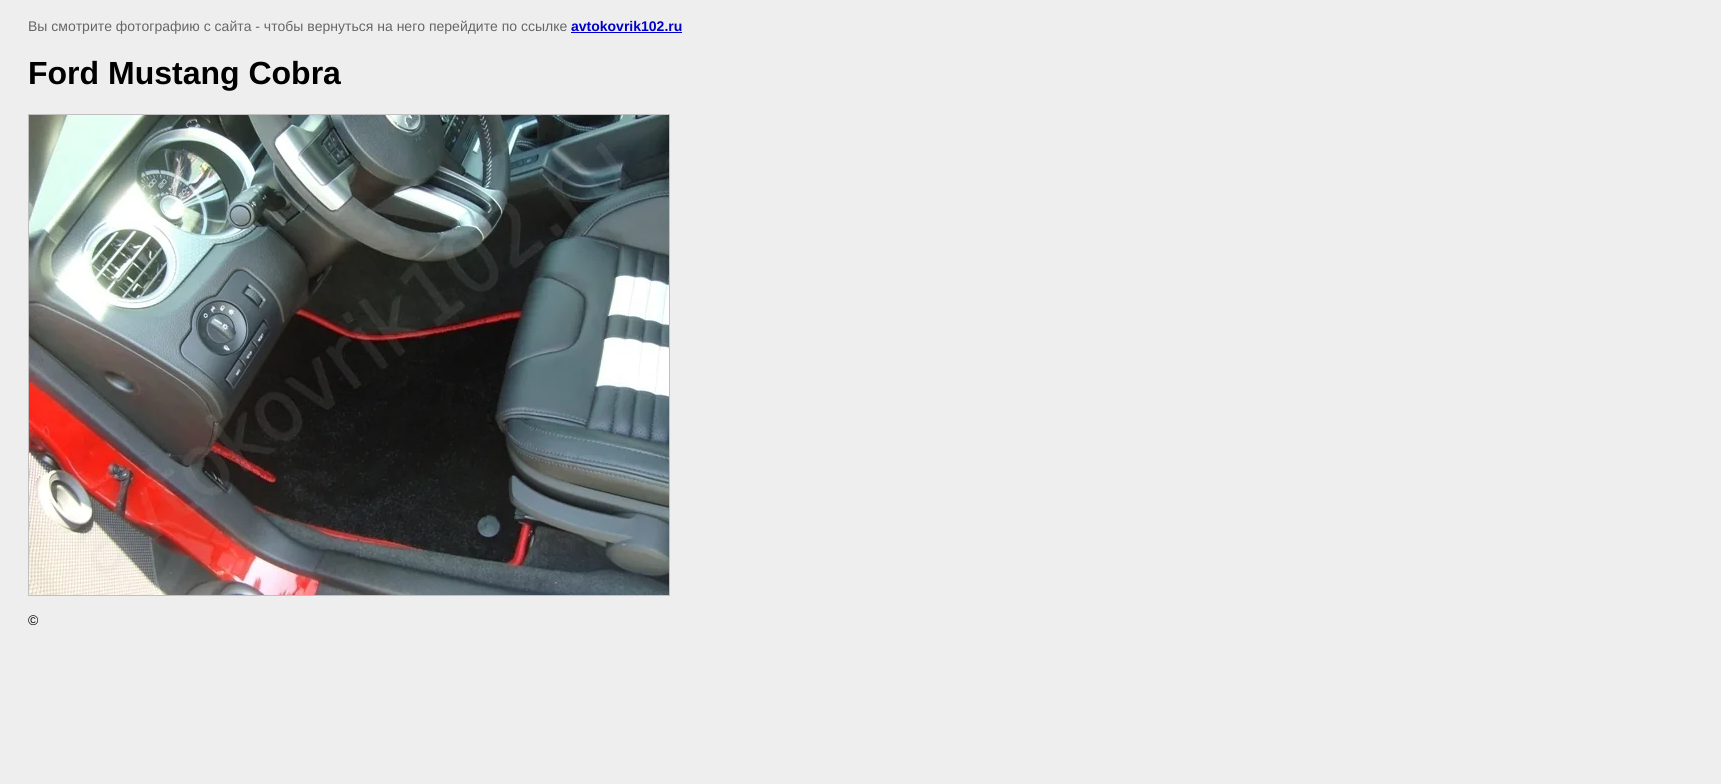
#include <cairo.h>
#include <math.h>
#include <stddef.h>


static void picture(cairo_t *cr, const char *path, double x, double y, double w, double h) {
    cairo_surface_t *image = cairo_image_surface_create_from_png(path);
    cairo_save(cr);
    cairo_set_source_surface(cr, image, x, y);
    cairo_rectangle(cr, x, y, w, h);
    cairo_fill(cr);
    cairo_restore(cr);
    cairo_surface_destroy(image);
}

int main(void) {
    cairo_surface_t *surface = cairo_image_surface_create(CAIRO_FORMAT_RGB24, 1721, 784);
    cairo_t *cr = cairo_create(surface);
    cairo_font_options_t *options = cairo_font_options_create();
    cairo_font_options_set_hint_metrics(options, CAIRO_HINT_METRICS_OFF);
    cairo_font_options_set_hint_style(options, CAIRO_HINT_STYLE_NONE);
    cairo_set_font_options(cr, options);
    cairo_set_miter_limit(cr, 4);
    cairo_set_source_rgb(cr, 0.933, 0.933, 0.933);
    cairo_paint(cr);
    cairo_select_font_face(cr, "Liberation Sans", CAIRO_FONT_SLANT_NORMAL, CAIRO_FONT_WEIGHT_NORMAL);
    cairo_set_font_size(cr, 14);
    cairo_set_source_rgb(cr, 0.4, 0.4, 0.4);
    cairo_move_to(cr, 28, 31);
    cairo_show_text(cr, "Вы смотрите фотографию с сайта - чтобы вернуться на него перейдите по ссылке");
    cairo_select_font_face(cr, "Liberation Sans", CAIRO_FONT_SLANT_NORMAL, CAIRO_FONT_WEIGHT_BOLD);
    cairo_set_source_rgb(cr, 0, 0, 0.8);
    cairo_move_to(cr, 571, 31);
    cairo_show_text(cr, "avtokovrik102.ru");
    cairo_rectangle(cr, 571, 32, 111, 1);
    cairo_fill(cr);
    cairo_set_font_size(cr, 32);
    cairo_set_source_rgb(cr, 0, 0, 0);
    cairo_move_to(cr, 28, 84);
    cairo_show_text(cr, "Ford Mustang Cobra");
    cairo_rectangle(cr, 28.5, 114.5, 641, 481);
    cairo_set_source_rgb(cr, 0.753, 0.753, 0.753);
    cairo_set_line_width(cr, 1);
    cairo_stroke(cr);
    picture(cr, "img1.png", 29, 115, 640, 480);
    cairo_select_font_face(cr, "Liberation Sans", CAIRO_FONT_SLANT_NORMAL, CAIRO_FONT_WEIGHT_NORMAL);
    cairo_set_font_size(cr, 14);
    cairo_set_source_rgb(cr, 0, 0, 0);
    cairo_move_to(cr, 28, 625);
    cairo_show_text(cr, "©");
    cairo_surface_write_to_png(surface, "page.png");
    cairo_font_options_destroy(options);
    cairo_destroy(cr);
    cairo_surface_destroy(surface);
    return 0;
}
